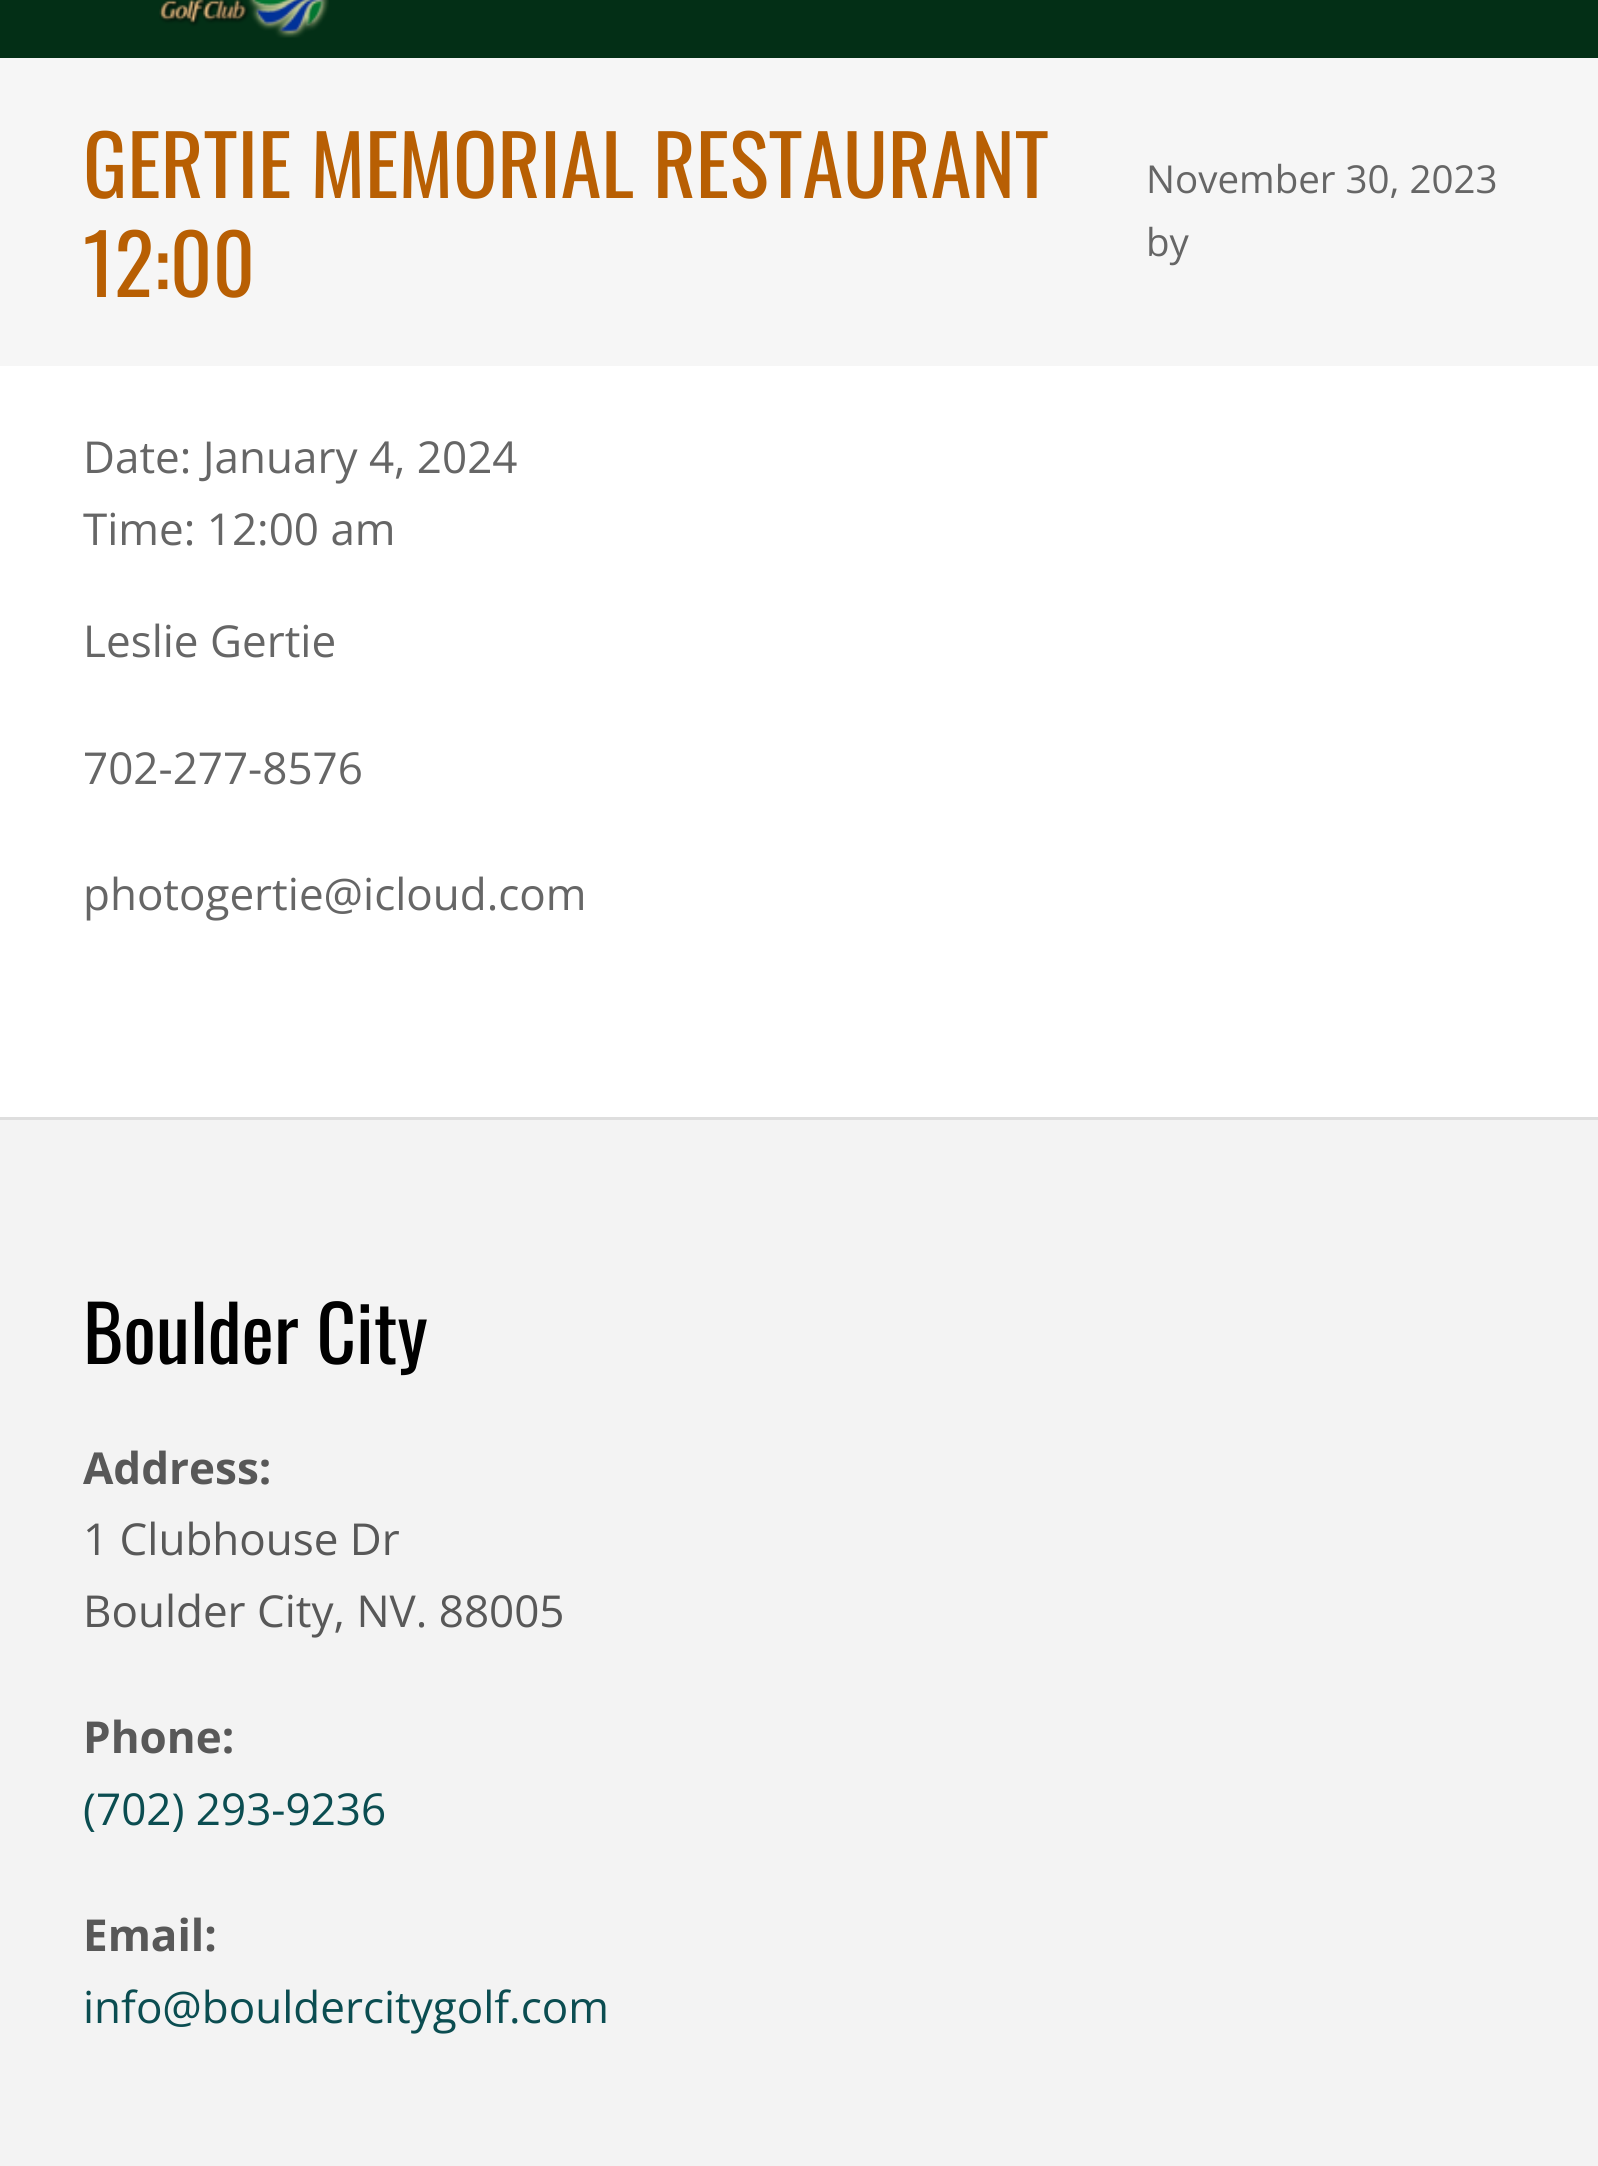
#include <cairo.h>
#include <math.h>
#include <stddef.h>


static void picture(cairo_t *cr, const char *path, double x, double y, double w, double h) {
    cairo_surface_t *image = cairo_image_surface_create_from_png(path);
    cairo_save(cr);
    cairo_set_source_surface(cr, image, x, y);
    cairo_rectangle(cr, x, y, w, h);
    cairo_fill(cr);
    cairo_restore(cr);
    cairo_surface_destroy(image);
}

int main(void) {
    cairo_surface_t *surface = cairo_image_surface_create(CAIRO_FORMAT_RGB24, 1598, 2166);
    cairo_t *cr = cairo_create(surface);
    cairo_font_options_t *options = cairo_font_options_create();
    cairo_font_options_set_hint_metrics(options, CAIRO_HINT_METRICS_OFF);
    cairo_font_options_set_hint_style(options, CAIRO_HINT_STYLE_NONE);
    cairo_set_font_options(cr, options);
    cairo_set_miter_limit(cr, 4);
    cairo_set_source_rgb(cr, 1, 1, 1);
    cairo_paint(cr);
    cairo_set_source_rgb(cr, 0.012, 0.184, 0.086);
    cairo_rectangle(cr, 0, 0, 1598, 58);
    cairo_fill(cr);
    picture(cr, "img1.png", 159, 0, 170, 38);
    cairo_set_source_rgb(cr, 0.961, 0.961, 0.961);
    cairo_rectangle(cr, 0, 58, 1598, 308);
    cairo_fill(cr);
    cairo_select_font_face(cr, "Oswald", CAIRO_FONT_SLANT_NORMAL, CAIRO_FONT_WEIGHT_NORMAL);
    cairo_set_font_size(cr, 82.5);
    cairo_set_source_rgb(cr, 0.722, 0.373, 0.012);
    cairo_move_to(cr, 83, 198);
    cairo_show_text(cr, "GERTIE MEMORIAL RESTAURANT");
    cairo_move_to(cr, 83, 297);
    cairo_show_text(cr, "12:00");
    cairo_select_font_face(cr, "Open Sans", CAIRO_FONT_SLANT_NORMAL, CAIRO_FONT_WEIGHT_NORMAL);
    cairo_set_font_size(cr, 38.5);
    cairo_set_source_rgb(cr, 0.4, 0.4, 0.4);
    cairo_move_to(cr, 1146, 193);
    cairo_show_text(cr, "November 30, 2023");
    cairo_move_to(cr, 1146, 256);
    cairo_show_text(cr, "by");
    cairo_set_font_size(cr, 44);
    cairo_move_to(cr, 83, 473);
    cairo_show_text(cr, "Date: January 4, 2024");
    cairo_move_to(cr, 83, 545);
    cairo_show_text(cr, "Time: 12:00 am");
    cairo_move_to(cr, 83, 657);
    cairo_show_text(cr, "Leslie Gertie");
    cairo_move_to(cr, 83, 784);
    cairo_show_text(cr, "702-277-8576");
    cairo_move_to(cr, 83, 910);
    cairo_show_text(cr, "photogertie@icloud.com");
    cairo_set_source_rgb(cr, 0.953, 0.953, 0.953);
    cairo_rectangle(cr, 0, 1120, 1598, 1046);
    cairo_fill(cr);
    cairo_set_source_rgb(cr, 0.871, 0.871, 0.871);
    cairo_rectangle(cr, 0, 1117, 1598, 3);
    cairo_fill(cr);
    cairo_select_font_face(cr, "Oswald", CAIRO_FONT_SLANT_NORMAL, CAIRO_FONT_WEIGHT_NORMAL);
    cairo_set_font_size(cr, 77);
    cairo_set_source_rgb(cr, 0, 0, 0);
    cairo_move_to(cr, 83, 1364);
    cairo_show_text(cr, "Boulder City");
    cairo_select_font_face(cr, "Open Sans", CAIRO_FONT_SLANT_NORMAL, CAIRO_FONT_WEIGHT_BOLD);
    cairo_set_font_size(cr, 44);
    cairo_set_source_rgb(cr, 0.345, 0.345, 0.345);
    cairo_move_to(cr, 83, 1484);
    cairo_show_text(cr, "Address:");
    cairo_select_font_face(cr, "Open Sans", CAIRO_FONT_SLANT_NORMAL, CAIRO_FONT_WEIGHT_NORMAL);
    cairo_move_to(cr, 83, 1555);
    cairo_show_text(cr, "1 Clubhouse Dr");
    cairo_move_to(cr, 83, 1627);
    cairo_show_text(cr, "Boulder City, NV. 88005");
    cairo_select_font_face(cr, "Open Sans", CAIRO_FONT_SLANT_NORMAL, CAIRO_FONT_WEIGHT_BOLD);
    cairo_move_to(cr, 83, 1753);
    cairo_show_text(cr, "Phone:");
    cairo_select_font_face(cr, "Open Sans", CAIRO_FONT_SLANT_NORMAL, CAIRO_FONT_WEIGHT_NORMAL);
    cairo_set_source_rgb(cr, 0.043, 0.302, 0.318);
    cairo_move_to(cr, 83, 1825);
    cairo_show_text(cr, "(702) 293-9236");
    cairo_select_font_face(cr, "Open Sans", CAIRO_FONT_SLANT_NORMAL, CAIRO_FONT_WEIGHT_BOLD);
    cairo_set_source_rgb(cr, 0.345, 0.345, 0.345);
    cairo_move_to(cr, 83, 1951);
    cairo_show_text(cr, "Email:");
    cairo_select_font_face(cr, "Open Sans", CAIRO_FONT_SLANT_NORMAL, CAIRO_FONT_WEIGHT_NORMAL);
    cairo_set_source_rgb(cr, 0.043, 0.302, 0.318);
    cairo_move_to(cr, 83, 2023);
    cairo_show_text(cr, "info@bouldercitygolf.com");
    cairo_surface_write_to_png(surface, "page.png");
    cairo_font_options_destroy(options);
    cairo_destroy(cr);
    cairo_surface_destroy(surface);
    return 0;
}
